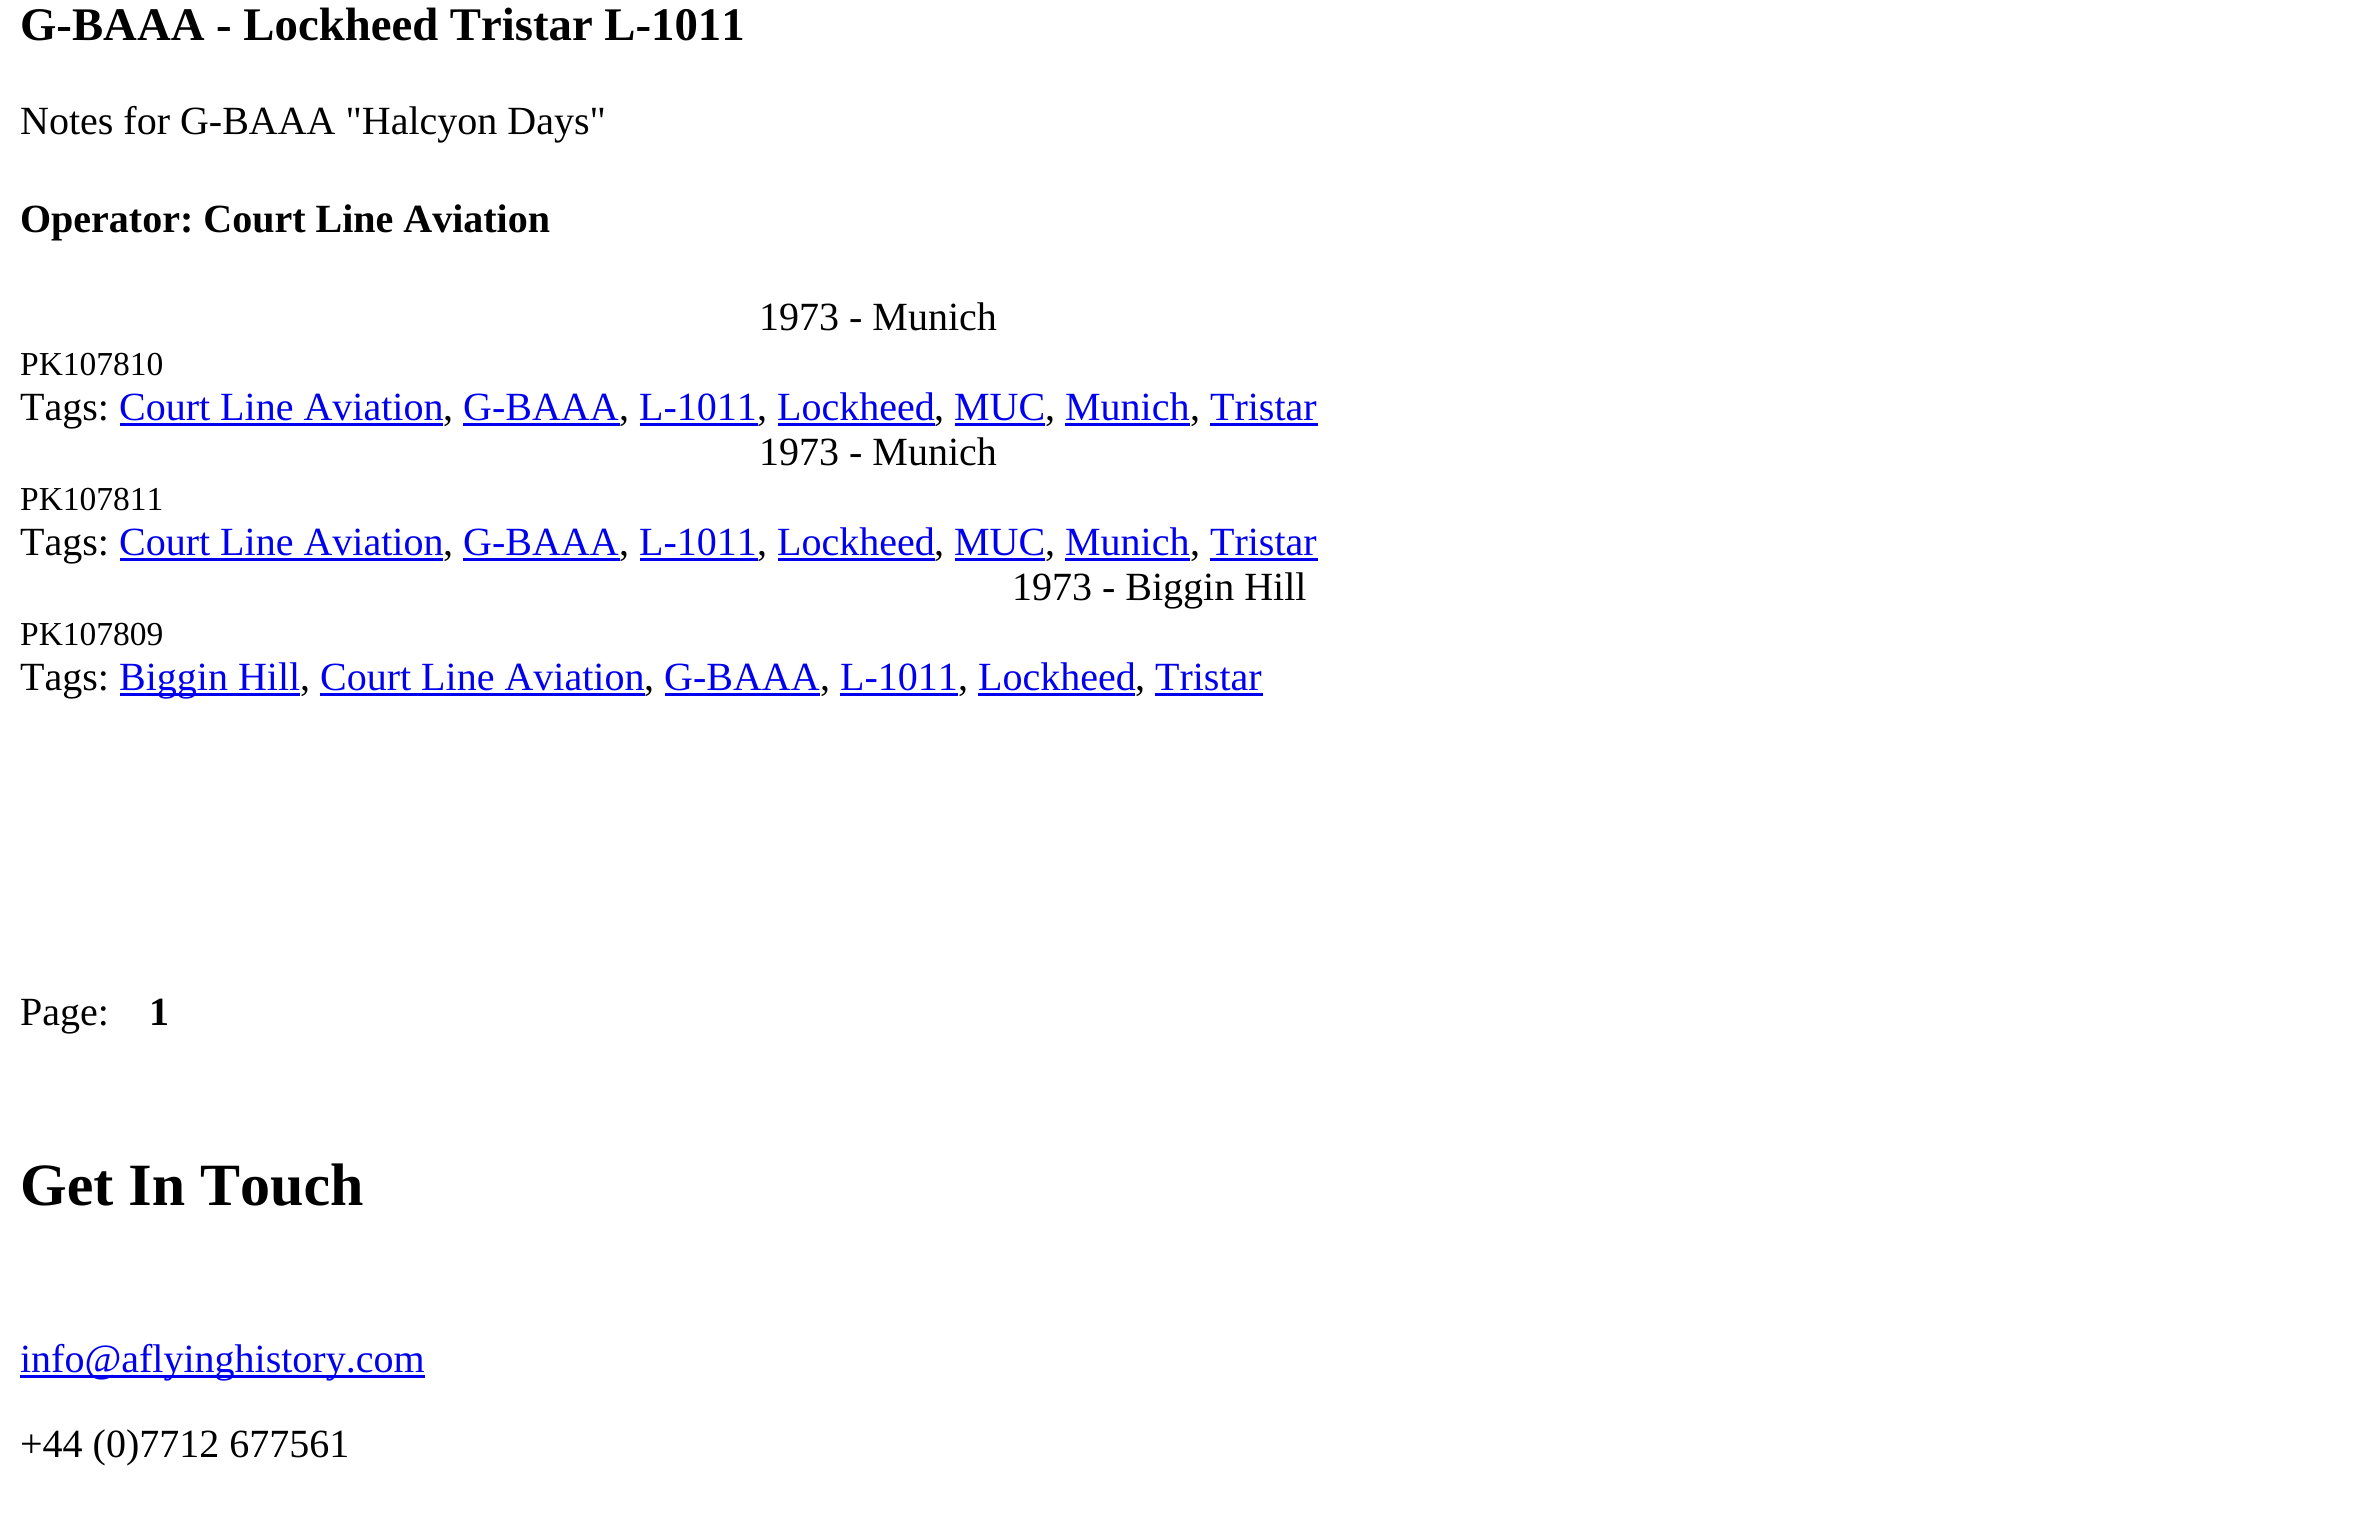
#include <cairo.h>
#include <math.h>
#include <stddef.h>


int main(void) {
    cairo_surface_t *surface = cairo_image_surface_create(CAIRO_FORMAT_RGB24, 2373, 1540);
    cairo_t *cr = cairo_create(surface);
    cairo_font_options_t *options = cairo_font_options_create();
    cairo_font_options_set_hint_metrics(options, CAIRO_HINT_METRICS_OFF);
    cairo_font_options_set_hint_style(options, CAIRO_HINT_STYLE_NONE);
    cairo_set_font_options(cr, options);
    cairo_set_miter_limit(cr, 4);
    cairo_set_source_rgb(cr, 1, 1, 1);
    cairo_paint(cr);
    cairo_select_font_face(cr, "Liberation Serif", CAIRO_FONT_SLANT_NORMAL, CAIRO_FONT_WEIGHT_BOLD);
    cairo_set_font_size(cr, 46.75);
    cairo_set_source_rgb(cr, 0, 0, 0);
    cairo_move_to(cr, 20, 40);
    cairo_show_text(cr, "G-BAAA - Lockheed Tristar L-1011");
    cairo_select_font_face(cr, "Liberation Serif", CAIRO_FONT_SLANT_NORMAL, CAIRO_FONT_WEIGHT_NORMAL);
    cairo_set_font_size(cr, 40);
    cairo_move_to(cr, 20, 134);
    cairo_show_text(cr, "Notes for G-BAAA \"Halcyon Days\"");
    cairo_select_font_face(cr, "Liberation Serif", CAIRO_FONT_SLANT_NORMAL, CAIRO_FONT_WEIGHT_BOLD);
    cairo_move_to(cr, 20, 232);
    cairo_show_text(cr, "Operator: Court Line Aviation");
    cairo_select_font_face(cr, "Liberation Serif", CAIRO_FONT_SLANT_NORMAL, CAIRO_FONT_WEIGHT_NORMAL);
    cairo_move_to(cr, 759, 330);
    cairo_show_text(cr, "1973 - Munich");
    cairo_set_font_size(cr, 33.5);
    cairo_move_to(cr, 20, 375);
    cairo_show_text(cr, "PK107810");
    cairo_set_font_size(cr, 40);
    cairo_move_to(cr, 20, 420);
    cairo_show_text(cr, "Tags:");
    cairo_set_source_rgb(cr, 0, 0, 0.933);
    cairo_move_to(cr, 119, 420);
    cairo_show_text(cr, "Court Line Aviation");
    cairo_rectangle(cr, 120, 423, 323, 3);
    cairo_fill(cr);
    cairo_set_source_rgb(cr, 0, 0, 0);
    cairo_move_to(cr, 443, 420);
    cairo_show_text(cr, ",");
    cairo_set_source_rgb(cr, 0, 0, 0.933);
    cairo_move_to(cr, 463, 420);
    cairo_show_text(cr, "G-BAAA");
    cairo_rectangle(cr, 463, 423, 157, 3);
    cairo_fill(cr);
    cairo_set_source_rgb(cr, 0, 0, 0);
    cairo_move_to(cr, 619, 420);
    cairo_show_text(cr, ",");
    cairo_set_source_rgb(cr, 0, 0, 0.933);
    cairo_move_to(cr, 639, 420);
    cairo_show_text(cr, "L-1011");
    cairo_rectangle(cr, 640, 423, 118, 3);
    cairo_fill(cr);
    cairo_set_source_rgb(cr, 0, 0, 0);
    cairo_move_to(cr, 757, 420);
    cairo_show_text(cr, ",");
    cairo_set_source_rgb(cr, 0, 0, 0.933);
    cairo_move_to(cr, 777, 420);
    cairo_show_text(cr, "Lockheed");
    cairo_rectangle(cr, 778, 423, 157, 3);
    cairo_fill(cr);
    cairo_set_source_rgb(cr, 0, 0, 0);
    cairo_move_to(cr, 934, 420);
    cairo_show_text(cr, ",");
    cairo_set_source_rgb(cr, 0, 0, 0.933);
    cairo_move_to(cr, 954, 420);
    cairo_show_text(cr, "MUC");
    cairo_rectangle(cr, 955, 423, 90, 3);
    cairo_fill(cr);
    cairo_set_source_rgb(cr, 0, 0, 0);
    cairo_move_to(cr, 1045, 420);
    cairo_show_text(cr, ",");
    cairo_set_source_rgb(cr, 0, 0, 0.933);
    cairo_move_to(cr, 1065, 420);
    cairo_show_text(cr, "Munich");
    cairo_rectangle(cr, 1065, 423, 125, 3);
    cairo_fill(cr);
    cairo_set_source_rgb(cr, 0, 0, 0);
    cairo_move_to(cr, 1190, 420);
    cairo_show_text(cr, ",");
    cairo_set_source_rgb(cr, 0, 0, 0.933);
    cairo_move_to(cr, 1210, 420);
    cairo_show_text(cr, "Tristar");
    cairo_rectangle(cr, 1210, 423, 108, 3);
    cairo_fill(cr);
    cairo_set_source_rgb(cr, 0, 0, 0);
    cairo_move_to(cr, 759, 465);
    cairo_show_text(cr, "1973 - Munich");
    cairo_set_font_size(cr, 33.5);
    cairo_move_to(cr, 20, 510);
    cairo_show_text(cr, "PK107811");
    cairo_set_font_size(cr, 40);
    cairo_move_to(cr, 20, 555);
    cairo_show_text(cr, "Tags:");
    cairo_set_source_rgb(cr, 0, 0, 0.933);
    cairo_move_to(cr, 119, 555);
    cairo_show_text(cr, "Court Line Aviation");
    cairo_rectangle(cr, 120, 558, 323, 3);
    cairo_fill(cr);
    cairo_set_source_rgb(cr, 0, 0, 0);
    cairo_move_to(cr, 443, 555);
    cairo_show_text(cr, ",");
    cairo_set_source_rgb(cr, 0, 0, 0.933);
    cairo_move_to(cr, 463, 555);
    cairo_show_text(cr, "G-BAAA");
    cairo_rectangle(cr, 463, 558, 157, 3);
    cairo_fill(cr);
    cairo_set_source_rgb(cr, 0, 0, 0);
    cairo_move_to(cr, 619, 555);
    cairo_show_text(cr, ",");
    cairo_set_source_rgb(cr, 0, 0, 0.933);
    cairo_move_to(cr, 639, 555);
    cairo_show_text(cr, "L-1011");
    cairo_rectangle(cr, 640, 558, 118, 3);
    cairo_fill(cr);
    cairo_set_source_rgb(cr, 0, 0, 0);
    cairo_move_to(cr, 757, 555);
    cairo_show_text(cr, ",");
    cairo_set_source_rgb(cr, 0, 0, 0.933);
    cairo_move_to(cr, 777, 555);
    cairo_show_text(cr, "Lockheed");
    cairo_rectangle(cr, 778, 558, 157, 3);
    cairo_fill(cr);
    cairo_set_source_rgb(cr, 0, 0, 0);
    cairo_move_to(cr, 934, 555);
    cairo_show_text(cr, ",");
    cairo_set_source_rgb(cr, 0, 0, 0.933);
    cairo_move_to(cr, 954, 555);
    cairo_show_text(cr, "MUC");
    cairo_rectangle(cr, 955, 558, 90, 3);
    cairo_fill(cr);
    cairo_set_source_rgb(cr, 0, 0, 0);
    cairo_move_to(cr, 1045, 555);
    cairo_show_text(cr, ",");
    cairo_set_source_rgb(cr, 0, 0, 0.933);
    cairo_move_to(cr, 1065, 555);
    cairo_show_text(cr, "Munich");
    cairo_rectangle(cr, 1065, 558, 125, 3);
    cairo_fill(cr);
    cairo_set_source_rgb(cr, 0, 0, 0);
    cairo_move_to(cr, 1190, 555);
    cairo_show_text(cr, ",");
    cairo_set_source_rgb(cr, 0, 0, 0.933);
    cairo_move_to(cr, 1210, 555);
    cairo_show_text(cr, "Tristar");
    cairo_rectangle(cr, 1210, 558, 108, 3);
    cairo_fill(cr);
    cairo_set_source_rgb(cr, 0, 0, 0);
    cairo_move_to(cr, 1012, 600);
    cairo_show_text(cr, "1973 - Biggin Hill");
    cairo_set_font_size(cr, 33.5);
    cairo_move_to(cr, 20, 645);
    cairo_show_text(cr, "PK107809");
    cairo_set_font_size(cr, 40);
    cairo_move_to(cr, 20, 690);
    cairo_show_text(cr, "Tags:");
    cairo_set_source_rgb(cr, 0, 0, 0.933);
    cairo_rectangle(cr, 120, 693, 180, 3);
    cairo_fill(cr);
    cairo_move_to(cr, 119, 690);
    cairo_show_text(cr, "Biggin Hill");
    cairo_set_source_rgb(cr, 0, 0, 0);
    cairo_move_to(cr, 300, 690);
    cairo_show_text(cr, ",");
    cairo_set_source_rgb(cr, 0, 0, 0.933);
    cairo_move_to(cr, 320, 690);
    cairo_show_text(cr, "Court Line Aviation");
    cairo_rectangle(cr, 320, 693, 325, 3);
    cairo_fill(cr);
    cairo_set_source_rgb(cr, 0, 0, 0);
    cairo_move_to(cr, 644, 690);
    cairo_show_text(cr, ",");
    cairo_set_source_rgb(cr, 0, 0, 0.933);
    cairo_move_to(cr, 664, 690);
    cairo_show_text(cr, "G-BAAA");
    cairo_rectangle(cr, 665, 693, 155, 3);
    cairo_fill(cr);
    cairo_set_source_rgb(cr, 0, 0, 0);
    cairo_move_to(cr, 820, 690);
    cairo_show_text(cr, ",");
    cairo_set_source_rgb(cr, 0, 0, 0.933);
    cairo_move_to(cr, 840, 690);
    cairo_show_text(cr, "L-1011");
    cairo_rectangle(cr, 840, 693, 118, 3);
    cairo_fill(cr);
    cairo_set_source_rgb(cr, 0, 0, 0);
    cairo_move_to(cr, 958, 690);
    cairo_show_text(cr, ",");
    cairo_set_source_rgb(cr, 0, 0, 0.933);
    cairo_move_to(cr, 978, 690);
    cairo_show_text(cr, "Lockheed");
    cairo_rectangle(cr, 978, 693, 157, 3);
    cairo_fill(cr);
    cairo_set_source_rgb(cr, 0, 0, 0);
    cairo_move_to(cr, 1135, 690);
    cairo_show_text(cr, ",");
    cairo_set_source_rgb(cr, 0, 0, 0.933);
    cairo_move_to(cr, 1155, 690);
    cairo_show_text(cr, "Tristar");
    cairo_rectangle(cr, 1155, 693, 108, 3);
    cairo_fill(cr);
    cairo_set_source_rgb(cr, 0, 0, 0);
    cairo_move_to(cr, 20, 1025);
    cairo_show_text(cr, "Page:");
    cairo_select_font_face(cr, "Liberation Serif", CAIRO_FONT_SLANT_NORMAL, CAIRO_FONT_WEIGHT_BOLD);
    cairo_move_to(cr, 149, 1025);
    cairo_show_text(cr, "1");
    cairo_set_font_size(cr, 60);
    cairo_move_to(cr, 20, 1205);
    cairo_show_text(cr, "Get In Touch");
    cairo_set_source_rgb(cr, 0, 0, 0.933);
    cairo_rectangle(cr, 20, 1375, 405, 3);
    cairo_fill(cr);
    cairo_select_font_face(cr, "Liberation Serif", CAIRO_FONT_SLANT_NORMAL, CAIRO_FONT_WEIGHT_NORMAL);
    cairo_set_font_size(cr, 40);
    cairo_move_to(cr, 20, 1372);
    cairo_show_text(cr, "info@aflyinghistory.com");
    cairo_set_source_rgb(cr, 0, 0, 0);
    cairo_move_to(cr, 20, 1457);
    cairo_show_text(cr, "+44 (0)7712 677561");
    cairo_surface_write_to_png(surface, "page.png");
    cairo_font_options_destroy(options);
    cairo_destroy(cr);
    cairo_surface_destroy(surface);
    return 0;
}
